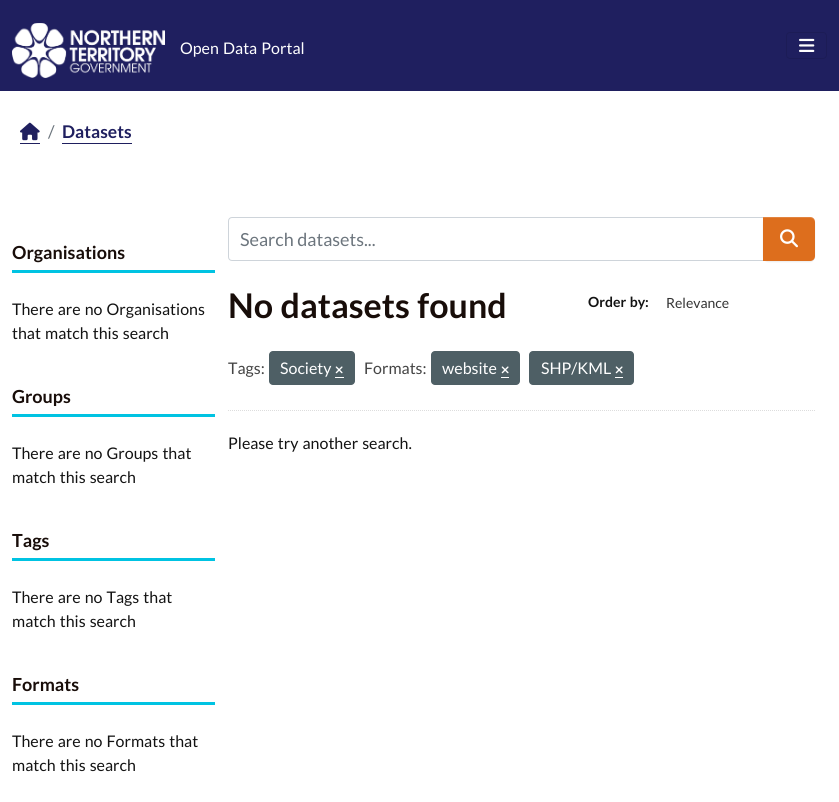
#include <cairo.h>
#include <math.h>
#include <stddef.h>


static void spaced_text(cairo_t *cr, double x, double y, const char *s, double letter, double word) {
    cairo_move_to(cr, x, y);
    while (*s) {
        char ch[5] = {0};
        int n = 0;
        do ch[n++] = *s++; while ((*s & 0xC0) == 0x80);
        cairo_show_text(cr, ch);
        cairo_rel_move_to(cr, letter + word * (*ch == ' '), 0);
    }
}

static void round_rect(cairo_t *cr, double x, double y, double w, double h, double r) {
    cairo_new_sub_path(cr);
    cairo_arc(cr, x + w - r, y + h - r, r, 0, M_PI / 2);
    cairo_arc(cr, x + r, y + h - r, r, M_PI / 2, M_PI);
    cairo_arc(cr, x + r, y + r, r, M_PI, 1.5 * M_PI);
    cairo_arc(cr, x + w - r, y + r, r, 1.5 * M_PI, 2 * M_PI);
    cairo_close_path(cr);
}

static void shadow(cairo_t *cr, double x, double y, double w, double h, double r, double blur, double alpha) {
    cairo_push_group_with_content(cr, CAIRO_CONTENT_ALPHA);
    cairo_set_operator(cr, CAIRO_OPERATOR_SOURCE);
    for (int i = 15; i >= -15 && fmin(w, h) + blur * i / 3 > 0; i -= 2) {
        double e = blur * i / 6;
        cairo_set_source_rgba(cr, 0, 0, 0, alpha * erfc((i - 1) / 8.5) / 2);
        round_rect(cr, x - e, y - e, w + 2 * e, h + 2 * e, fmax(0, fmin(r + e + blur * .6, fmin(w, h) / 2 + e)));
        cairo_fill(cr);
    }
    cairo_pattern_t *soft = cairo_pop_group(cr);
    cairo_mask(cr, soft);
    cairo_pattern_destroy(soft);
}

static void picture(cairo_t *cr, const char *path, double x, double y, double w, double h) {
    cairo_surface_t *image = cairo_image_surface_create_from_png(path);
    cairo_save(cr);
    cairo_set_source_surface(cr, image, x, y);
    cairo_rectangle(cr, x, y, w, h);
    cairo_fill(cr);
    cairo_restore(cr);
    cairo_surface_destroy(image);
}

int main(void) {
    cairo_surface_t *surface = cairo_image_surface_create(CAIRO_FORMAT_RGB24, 839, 802);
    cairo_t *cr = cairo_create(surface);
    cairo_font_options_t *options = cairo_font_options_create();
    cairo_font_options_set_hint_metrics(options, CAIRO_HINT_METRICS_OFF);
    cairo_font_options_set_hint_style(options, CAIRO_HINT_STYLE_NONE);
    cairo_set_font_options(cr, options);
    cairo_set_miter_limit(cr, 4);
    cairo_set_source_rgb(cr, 1, 1, 1);
    cairo_paint(cr);
    cairo_set_source_rgb(cr, 0.122, 0.122, 0.373);
    cairo_rectangle(cr, 0, 0, 839, 91);
    cairo_fill(cr);
    picture(cr, "img1.png", 12, 23, 153, 55);
    cairo_select_font_face(cr, "Lato", CAIRO_FONT_SLANT_NORMAL, CAIRO_FONT_WEIGHT_NORMAL);
    cairo_set_font_size(cr, 16);
    cairo_set_source_rgb(cr, 1, 1, 1);
    spaced_text(cr, 180, 54, "Open Data Portal", 0, 1);
    round_rect(cr, 786.5, 32.5, 40, 26, 3.5);
    cairo_set_source_rgb(cr, 0.11, 0.11, 0.337);
    cairo_set_line_width(cr, 1);
    cairo_stroke(cr);
    picture(cr, "img2.png", 799, 38, 16, 14);
    cairo_set_source_rgb(cr, 0.122, 0.122, 0.373);
    cairo_rectangle(cr, 20, 143, 20, 1);
    cairo_fill(cr);
    picture(cr, "img3.png", 20, 122, 20, 19);
    cairo_set_font_size(cr, 17.5);
    cairo_set_source_rgb(cr, 0.424, 0.459, 0.49);
    cairo_move_to(cr, 48, 138);
    cairo_show_text(cr, "/");
    cairo_select_font_face(cr, "Lato", CAIRO_FONT_SLANT_NORMAL, CAIRO_FONT_WEIGHT_BOLD);
    cairo_set_source_rgb(cr, 0.122, 0.122, 0.373);
    cairo_move_to(cr, 62, 138);
    cairo_show_text(cr, "Datasets");
    cairo_rectangle(cr, 62, 143, 70, 1);
    cairo_fill(cr);
    cairo_set_source_rgb(cr, 0, 0.765, 0.886);
    cairo_rectangle(cr, 12, 270, 203, 3);
    cairo_fill(cr);
    cairo_set_font_size(cr, 18);
    cairo_set_source_rgb(cr, 0.094, 0.051, 0.039);
    cairo_move_to(cr, 12, 259);
    cairo_show_text(cr, "Organisations");
    cairo_select_font_face(cr, "Lato", CAIRO_FONT_SLANT_NORMAL, CAIRO_FONT_WEIGHT_NORMAL);
    cairo_set_font_size(cr, 16);
    cairo_set_source_rgb(cr, 0.078, 0.078, 0.078);
    spaced_text(cr, 12, 315, "There are no Organisations", 0, 1);
    spaced_text(cr, 12, 339, "that match this search", 0, 1);
    cairo_set_source_rgb(cr, 0, 0.765, 0.886);
    cairo_rectangle(cr, 12, 414, 203, 3);
    cairo_fill(cr);
    cairo_select_font_face(cr, "Lato", CAIRO_FONT_SLANT_NORMAL, CAIRO_FONT_WEIGHT_BOLD);
    cairo_set_font_size(cr, 18);
    cairo_set_source_rgb(cr, 0.094, 0.051, 0.039);
    cairo_move_to(cr, 12, 403);
    cairo_show_text(cr, "Groups");
    cairo_select_font_face(cr, "Lato", CAIRO_FONT_SLANT_NORMAL, CAIRO_FONT_WEIGHT_NORMAL);
    cairo_set_font_size(cr, 16);
    cairo_set_source_rgb(cr, 0.078, 0.078, 0.078);
    spaced_text(cr, 12, 459, "There are no Groups that", 0, 1);
    spaced_text(cr, 12, 483, "match this search", 0, 1);
    cairo_set_source_rgb(cr, 0, 0.765, 0.886);
    cairo_rectangle(cr, 12, 558, 203, 3);
    cairo_fill(cr);
    cairo_select_font_face(cr, "Lato", CAIRO_FONT_SLANT_NORMAL, CAIRO_FONT_WEIGHT_BOLD);
    cairo_set_font_size(cr, 18);
    cairo_set_source_rgb(cr, 0.094, 0.051, 0.039);
    cairo_move_to(cr, 12, 547);
    cairo_show_text(cr, "Tags");
    cairo_select_font_face(cr, "Lato", CAIRO_FONT_SLANT_NORMAL, CAIRO_FONT_WEIGHT_NORMAL);
    cairo_set_font_size(cr, 16);
    cairo_set_source_rgb(cr, 0.078, 0.078, 0.078);
    spaced_text(cr, 12, 603, "There are no Tags that", 0, 1);
    spaced_text(cr, 12, 627, "match this search", 0, 1);
    cairo_set_source_rgb(cr, 0, 0.765, 0.886);
    cairo_rectangle(cr, 12, 702, 203, 3);
    cairo_fill(cr);
    cairo_select_font_face(cr, "Lato", CAIRO_FONT_SLANT_NORMAL, CAIRO_FONT_WEIGHT_BOLD);
    cairo_set_font_size(cr, 18);
    cairo_set_source_rgb(cr, 0.094, 0.051, 0.039);
    cairo_move_to(cr, 12, 691);
    cairo_show_text(cr, "Formats");
    cairo_select_font_face(cr, "Lato", CAIRO_FONT_SLANT_NORMAL, CAIRO_FONT_WEIGHT_NORMAL);
    cairo_set_font_size(cr, 16);
    cairo_set_source_rgb(cr, 0.078, 0.078, 0.078);
    spaced_text(cr, 12, 747, "There are no Formats that", 0, 1);
    spaced_text(cr, 12, 771, "match this search", 0, 1);
    cairo_new_path(cr);
    cairo_move_to(cr, 228, 410.5);
    cairo_line_to(cr, 815, 410.5);
    cairo_set_source_rgb(cr, 0.867, 0.867, 0.867);
    cairo_set_dash(cr, (double[]){1, 1}, 2, 0);
    cairo_stroke(cr);
    cairo_new_path(cr);
    cairo_move_to(cr, 232, 217.5);
    cairo_line_to(cr, 763.5, 217.5);
    cairo_line_to(cr, 763.5, 260.5);
    cairo_line_to(cr, 232, 260.5);
    cairo_curve_to(cr, 230, 260.5, 228.5, 259, 228.5, 257);
    cairo_line_to(cr, 228.5, 221);
    cairo_curve_to(cr, 228.5, 219, 230, 217.5, 232, 217.5);
    cairo_close_path(cr);
    cairo_set_source_rgb(cr, 0.808, 0.831, 0.855);
    cairo_set_dash(cr, NULL, 0, 0);
    cairo_stroke(cr);
    cairo_set_font_size(cr, 18);
    cairo_set_source_rgb(cr, 0.424, 0.459, 0.49);
    cairo_move_to(cr, 240, 246);
    cairo_show_text(cr, "Search datasets...");
    cairo_set_source_rgb(cr, 0, 0, 0);
    shadow(cr, 763, 218, 52, 44, 5, 0.5, 0.07);
    cairo_set_source_rgb(cr, 0.867, 0.431, 0.114);
    cairo_new_path(cr);
    cairo_move_to(cr, 763, 217);
    cairo_line_to(cr, 810, 217);
    cairo_curve_to(cr, 813, 217, 815, 219, 815, 222);
    cairo_line_to(cr, 815, 256);
    cairo_curve_to(cr, 815, 259, 813, 261, 810, 261);
    cairo_line_to(cr, 763, 261);
    cairo_close_path(cr);
    cairo_fill(cr);
    cairo_set_source_rgba(cr, 1, 1, 1, 0.15);
    cairo_new_path(cr);
    cairo_move_to(cr, 763, 218);
    cairo_line_to(cr, 810, 218);
    cairo_curve_to(cr, 813, 218, 815, 220, 815, 223);
    cairo_line_to(cr, 815, 222);
    cairo_curve_to(cr, 815, 219, 813, 217, 810, 217);
    cairo_line_to(cr, 763, 217);
    cairo_close_path(cr);
    cairo_fill(cr);
    picture(cr, "img4.png", 780, 229, 18, 19);
    cairo_select_font_face(cr, "Lato", CAIRO_FONT_SLANT_NORMAL, CAIRO_FONT_WEIGHT_BOLD);
    cairo_set_font_size(cr, 34);
    cairo_set_source_rgb(cr, 0.094, 0.051, 0.039);
    spaced_text(cr, 228, 318, "No datasets found", 0, 1);
    cairo_set_font_size(cr, 14);
    cairo_set_source_rgb(cr, 0.078, 0.078, 0.078);
    spaced_text(cr, 588, 307, "Order by", 0, 1);
    cairo_move_to(cr, 645, 307);
    cairo_show_text(cr, ":");
    cairo_select_font_face(cr, "Lato", CAIRO_FONT_SLANT_NORMAL, CAIRO_FONT_WEIGHT_NORMAL);
    cairo_set_source_rgb(cr, 0.2, 0.2, 0.2);
    cairo_move_to(cr, 666, 308);
    cairo_show_text(cr, "Relevance");
    cairo_set_font_size(cr, 16);
    cairo_set_source_rgb(cr, 0.267, 0.267, 0.267);
    cairo_move_to(cr, 228, 374);
    cairo_show_text(cr, "Tags:");
    cairo_set_source_rgb(cr, 0.306, 0.373, 0.396);
    round_rect(cr, 269, 351, 86, 34, 4);
    cairo_fill(cr);
    cairo_set_source_rgb(cr, 1, 1, 1);
    cairo_move_to(cr, 280, 374);
    cairo_show_text(cr, "Society");
    cairo_rectangle(cr, 335, 377, 9, 1);
    cairo_fill(cr);
    picture(cr, "img5.png", 335, 366, 8, 8);
    cairo_set_source_rgb(cr, 0.267, 0.267, 0.267);
    cairo_move_to(cr, 364, 374);
    cairo_show_text(cr, "Formats:");
    cairo_set_source_rgb(cr, 0.306, 0.373, 0.396);
    round_rect(cr, 431, 351, 89, 34, 4);
    cairo_fill(cr);
    cairo_set_source_rgb(cr, 1, 1, 1);
    cairo_move_to(cr, 442, 374);
    cairo_show_text(cr, "website");
    cairo_rectangle(cr, 501, 377, 8, 1);
    cairo_fill(cr);
    picture(cr, "img5.png", 501, 366, 8, 8);
    cairo_set_source_rgb(cr, 0.306, 0.373, 0.396);
    round_rect(cr, 529, 351, 105, 34, 4);
    cairo_fill(cr);
    cairo_set_source_rgb(cr, 1, 1, 1);
    cairo_move_to(cr, 541, 374);
    cairo_show_text(cr, "SHP/KML");
    cairo_rectangle(cr, 615, 377, 8, 1);
    cairo_fill(cr);
    picture(cr, "img5.png", 615, 366, 8, 8);
    cairo_set_source_rgb(cr, 0.078, 0.078, 0.078);
    spaced_text(cr, 228, 449, "Please try another search.", 0, 1);
    cairo_surface_write_to_png(surface, "page.png");
    cairo_font_options_destroy(options);
    cairo_destroy(cr);
    cairo_surface_destroy(surface);
    return 0;
}
